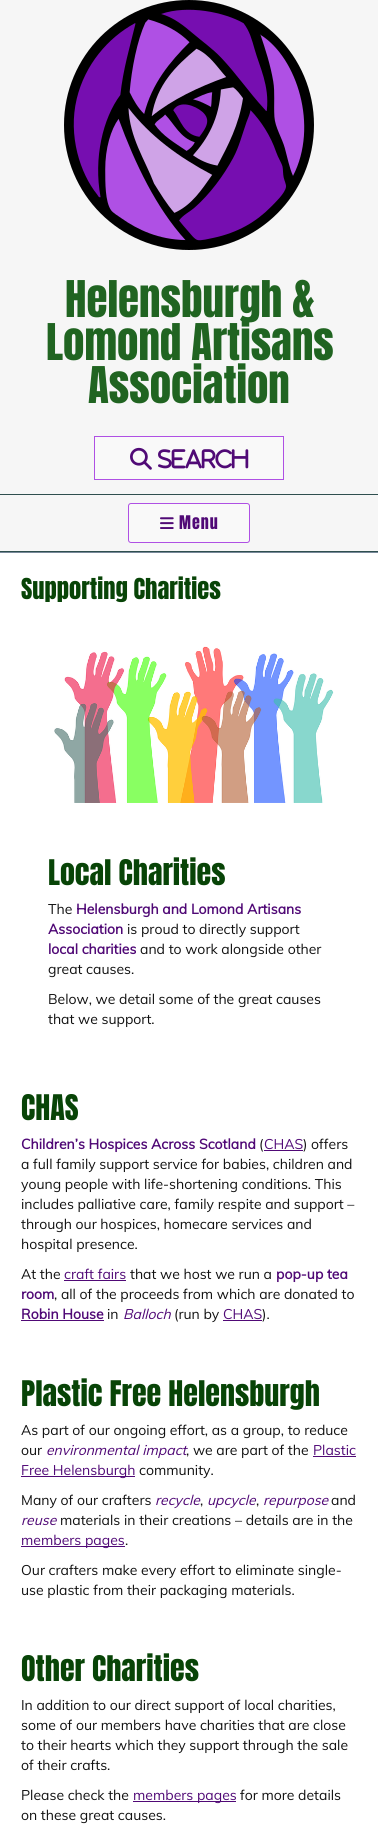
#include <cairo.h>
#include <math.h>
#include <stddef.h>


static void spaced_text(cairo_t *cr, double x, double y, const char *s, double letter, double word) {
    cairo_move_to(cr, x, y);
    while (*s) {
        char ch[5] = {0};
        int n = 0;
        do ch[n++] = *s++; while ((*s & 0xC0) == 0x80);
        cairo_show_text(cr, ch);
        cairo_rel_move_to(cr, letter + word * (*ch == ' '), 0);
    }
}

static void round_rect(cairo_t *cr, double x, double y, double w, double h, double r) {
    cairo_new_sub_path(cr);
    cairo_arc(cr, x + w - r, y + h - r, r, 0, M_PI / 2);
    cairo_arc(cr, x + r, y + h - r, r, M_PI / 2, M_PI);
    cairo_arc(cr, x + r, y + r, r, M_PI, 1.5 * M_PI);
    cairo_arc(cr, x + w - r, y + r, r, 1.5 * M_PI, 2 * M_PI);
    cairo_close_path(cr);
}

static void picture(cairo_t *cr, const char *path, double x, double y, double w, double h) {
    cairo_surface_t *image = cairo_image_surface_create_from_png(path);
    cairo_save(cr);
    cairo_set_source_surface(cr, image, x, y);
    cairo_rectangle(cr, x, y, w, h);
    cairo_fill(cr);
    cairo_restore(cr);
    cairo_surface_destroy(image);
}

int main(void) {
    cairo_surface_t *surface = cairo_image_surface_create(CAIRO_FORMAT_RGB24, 378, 1845);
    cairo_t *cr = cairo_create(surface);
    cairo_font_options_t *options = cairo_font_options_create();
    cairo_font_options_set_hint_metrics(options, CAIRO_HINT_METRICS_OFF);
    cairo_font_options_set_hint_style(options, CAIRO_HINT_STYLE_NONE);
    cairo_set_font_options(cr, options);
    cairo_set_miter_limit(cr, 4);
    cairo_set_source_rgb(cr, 0.961, 0.961, 0.961);
    cairo_paint(cr);
    picture(cr, "img1.png", 64, 0, 250, 250);
    cairo_select_font_face(cr, "Anton", CAIRO_FONT_SLANT_NORMAL, CAIRO_FONT_WEIGHT_NORMAL);
    cairo_set_font_size(cr, 43);
    cairo_set_source_rgb(cr, 0.125, 0.392, 0.129);
    cairo_move_to(cr, 65, 317);
    cairo_show_text(cr, "Helensburgh &");
    cairo_move_to(cr, 46, 360);
    cairo_show_text(cr, "Lomond Artisans");
    cairo_move_to(cr, 88, 403);
    cairo_show_text(cr, "Association");
    cairo_set_source_rgb(cr, 0.976, 0.976, 0.976);
    cairo_rectangle(cr, 94.5, 436.5, 189, 43);
    cairo_fill_preserve(cr);
    cairo_set_source_rgb(cr, 0.686, 0.314, 0.894);
    cairo_set_line_width(cr, 1);
    cairo_stroke(cr);
    picture(cr, "img2.png", 130, 447, 22, 23);
    picture(cr, "img3.png", 158, 449, 91, 20);
    cairo_set_source_rgb(cr, 0.184, 0.31, 0.31);
    cairo_rectangle(cr, 0, 494, 378, 1);
    cairo_fill(cr);
    cairo_rectangle(cr, 0, 551, 378, 1);
    cairo_fill(cr);
    cairo_set_source_rgb(cr, 0.976, 0.976, 0.976);
    round_rect(cr, 128.5, 503.5, 121, 39, 2.5);
    cairo_fill_preserve(cr);
    cairo_set_source_rgb(cr, 0.686, 0.314, 0.894);
    cairo_stroke(cr);
    picture(cr, "img4.png", 160, 517, 14, 12);
    cairo_set_font_size(cr, 16);
    cairo_set_source_rgb(cr, 0.314, 0.039, 0.463);
    spaced_text(cr, 179, 529, "Menu", 1, 0);
    cairo_set_source_rgb(cr, 1, 1, 1);
    cairo_rectangle(cr, 0, 553, 378, 1292);
    cairo_fill(cr);
    cairo_set_source_rgb(cr, 0.467, 0.533, 0.6);
    cairo_rectangle(cr, 0, 552, 378, 1);
    cairo_fill(cr);
    cairo_set_font_size(cr, 24.5);
    cairo_set_source_rgb(cr, 0.035, 0.267, 0.031);
    cairo_move_to(cr, 21, 599);
    cairo_show_text(cr, "Supporting Charities");
    picture(cr, "img5.png", 54, 646, 280, 157);
    cairo_set_font_size(cr, 30);
    cairo_move_to(cr, 48, 885);
    cairo_show_text(cr, "Local Charities");
    cairo_select_font_face(cr, "Muli", CAIRO_FONT_SLANT_NORMAL, CAIRO_FONT_WEIGHT_NORMAL);
    cairo_set_font_size(cr, 14);
    cairo_set_source_rgb(cr, 0.067, 0.067, 0.067);
    cairo_move_to(cr, 48, 914);
    cairo_show_text(cr, "The");
    cairo_select_font_face(cr, "Muli", CAIRO_FONT_SLANT_NORMAL, CAIRO_FONT_WEIGHT_BOLD);
    cairo_set_source_rgb(cr, 0.314, 0.039, 0.463);
    cairo_move_to(cr, 76, 914);
    cairo_show_text(cr, "Helensburgh and Lomond Artisans");
    cairo_move_to(cr, 48, 934);
    cairo_show_text(cr, "Association");
    cairo_select_font_face(cr, "Muli", CAIRO_FONT_SLANT_NORMAL, CAIRO_FONT_WEIGHT_NORMAL);
    cairo_set_source_rgb(cr, 0.067, 0.067, 0.067);
    cairo_move_to(cr, 127, 934);
    cairo_show_text(cr, "is proud to directly support");
    cairo_select_font_face(cr, "Muli", CAIRO_FONT_SLANT_NORMAL, CAIRO_FONT_WEIGHT_BOLD);
    cairo_set_source_rgb(cr, 0.314, 0.039, 0.463);
    cairo_move_to(cr, 48, 954);
    cairo_show_text(cr, "local charities");
    cairo_select_font_face(cr, "Muli", CAIRO_FONT_SLANT_NORMAL, CAIRO_FONT_WEIGHT_NORMAL);
    cairo_set_source_rgb(cr, 0.067, 0.067, 0.067);
    cairo_move_to(cr, 140, 954);
    cairo_show_text(cr, "and to work alongside other");
    cairo_move_to(cr, 48, 974);
    cairo_show_text(cr, "great causes.");
    cairo_move_to(cr, 48, 1004);
    cairo_show_text(cr, "Below, we detail some of the great causes");
    cairo_move_to(cr, 48, 1024);
    cairo_show_text(cr, "that we support.");
    cairo_select_font_face(cr, "Anton", CAIRO_FONT_SLANT_NORMAL, CAIRO_FONT_WEIGHT_NORMAL);
    cairo_set_font_size(cr, 30);
    cairo_set_source_rgb(cr, 0.035, 0.267, 0.031);
    cairo_move_to(cr, 21, 1120);
    cairo_show_text(cr, "CHAS");
    cairo_select_font_face(cr, "Muli", CAIRO_FONT_SLANT_NORMAL, CAIRO_FONT_WEIGHT_BOLD);
    cairo_set_font_size(cr, 14);
    cairo_set_source_rgb(cr, 0.314, 0.039, 0.463);
    cairo_move_to(cr, 21, 1149);
    cairo_show_text(cr, "Children’s Hospices Across Scotland");
    cairo_select_font_face(cr, "Muli", CAIRO_FONT_SLANT_NORMAL, CAIRO_FONT_WEIGHT_NORMAL);
    cairo_set_source_rgb(cr, 0.067, 0.067, 0.067);
    cairo_move_to(cr, 259, 1149);
    cairo_show_text(cr, "(");
    cairo_set_source_rgb(cr, 0.314, 0.039, 0.463);
    cairo_move_to(cr, 264, 1149);
    cairo_show_text(cr, "CHAS");
    cairo_rectangle(cr, 264, 1150, 39, 1);
    cairo_fill(cr);
    cairo_set_source_rgb(cr, 0.067, 0.067, 0.067);
    cairo_move_to(cr, 303, 1149);
    cairo_show_text(cr, ") offers");
    cairo_move_to(cr, 21, 1169);
    cairo_show_text(cr, "a full family support service for babies, children and");
    cairo_move_to(cr, 21, 1189);
    cairo_show_text(cr, "young people with life-shortening conditions. This");
    cairo_move_to(cr, 21, 1209);
    cairo_show_text(cr, "includes palliative care, family respite and support –");
    cairo_move_to(cr, 21, 1229);
    cairo_show_text(cr, "through our hospices, homecare services and");
    cairo_move_to(cr, 21, 1249);
    cairo_show_text(cr, "hospital presence.");
    cairo_move_to(cr, 21, 1279);
    cairo_show_text(cr, "At the");
    cairo_set_source_rgb(cr, 0.314, 0.039, 0.463);
    cairo_move_to(cr, 64, 1279);
    cairo_show_text(cr, "craft fairs");
    cairo_rectangle(cr, 64, 1280, 62, 1);
    cairo_fill(cr);
    cairo_set_source_rgb(cr, 0.067, 0.067, 0.067);
    cairo_move_to(cr, 130, 1279);
    cairo_show_text(cr, "that we host we run a");
    cairo_select_font_face(cr, "Muli", CAIRO_FONT_SLANT_NORMAL, CAIRO_FONT_WEIGHT_BOLD);
    cairo_set_source_rgb(cr, 0.314, 0.039, 0.463);
    cairo_move_to(cr, 276, 1279);
    cairo_show_text(cr, "pop-up tea");
    cairo_move_to(cr, 21, 1299);
    cairo_show_text(cr, "room");
    cairo_select_font_face(cr, "Muli", CAIRO_FONT_SLANT_NORMAL, CAIRO_FONT_WEIGHT_NORMAL);
    cairo_set_source_rgb(cr, 0.067, 0.067, 0.067);
    cairo_move_to(cr, 54, 1299);
    cairo_show_text(cr, ", all of the proceeds from which are donated to");
    cairo_select_font_face(cr, "Muli", CAIRO_FONT_SLANT_NORMAL, CAIRO_FONT_WEIGHT_BOLD);
    cairo_set_source_rgb(cr, 0.314, 0.039, 0.463);
    cairo_move_to(cr, 21, 1319);
    cairo_show_text(cr, "Robin House");
    cairo_rectangle(cr, 21, 1320, 83, 1);
    cairo_fill(cr);
    cairo_select_font_face(cr, "Muli", CAIRO_FONT_SLANT_NORMAL, CAIRO_FONT_WEIGHT_NORMAL);
    cairo_set_source_rgb(cr, 0.067, 0.067, 0.067);
    cairo_move_to(cr, 107, 1319);
    cairo_show_text(cr, "in");
    cairo_select_font_face(cr, "Muli", CAIRO_FONT_SLANT_ITALIC, CAIRO_FONT_WEIGHT_NORMAL);
    cairo_set_source_rgb(cr, 0.314, 0.039, 0.463);
    cairo_move_to(cr, 123, 1319);
    cairo_show_text(cr, "Balloch");
    cairo_select_font_face(cr, "Muli", CAIRO_FONT_SLANT_NORMAL, CAIRO_FONT_WEIGHT_NORMAL);
    cairo_set_source_rgb(cr, 0.067, 0.067, 0.067);
    cairo_move_to(cr, 174, 1319);
    cairo_show_text(cr, "(run by");
    cairo_set_source_rgb(cr, 0.314, 0.039, 0.463);
    cairo_move_to(cr, 223, 1319);
    cairo_show_text(cr, "CHAS");
    cairo_rectangle(cr, 223, 1320, 39, 1);
    cairo_fill(cr);
    cairo_set_source_rgb(cr, 0.067, 0.067, 0.067);
    cairo_move_to(cr, 262, 1319);
    cairo_show_text(cr, ").");
    cairo_select_font_face(cr, "Anton", CAIRO_FONT_SLANT_NORMAL, CAIRO_FONT_WEIGHT_NORMAL);
    cairo_set_font_size(cr, 30);
    cairo_set_source_rgb(cr, 0.035, 0.267, 0.031);
    cairo_move_to(cr, 21, 1406);
    cairo_show_text(cr, "Plastic Free Helensburgh");
    cairo_select_font_face(cr, "Muli", CAIRO_FONT_SLANT_NORMAL, CAIRO_FONT_WEIGHT_NORMAL);
    cairo_set_font_size(cr, 14);
    cairo_set_source_rgb(cr, 0.067, 0.067, 0.067);
    cairo_move_to(cr, 21, 1435);
    cairo_show_text(cr, "As part of our ongoing effort, as a group, to reduce");
    cairo_move_to(cr, 21, 1455);
    cairo_show_text(cr, "our");
    cairo_select_font_face(cr, "Muli", CAIRO_FONT_SLANT_ITALIC, CAIRO_FONT_WEIGHT_NORMAL);
    cairo_set_source_rgb(cr, 0.314, 0.039, 0.463);
    cairo_move_to(cr, 46, 1455);
    cairo_show_text(cr, "environmental impact");
    cairo_select_font_face(cr, "Muli", CAIRO_FONT_SLANT_NORMAL, CAIRO_FONT_WEIGHT_NORMAL);
    cairo_set_source_rgb(cr, 0.067, 0.067, 0.067);
    cairo_move_to(cr, 186, 1455);
    cairo_show_text(cr, ", we are part of the");
    cairo_set_source_rgb(cr, 0.314, 0.039, 0.463);
    cairo_move_to(cr, 313, 1455);
    cairo_show_text(cr, "Plastic");
    cairo_rectangle(cr, 313, 1456, 43, 1);
    cairo_fill(cr);
    cairo_rectangle(cr, 21, 1476, 114, 1);
    cairo_fill(cr);
    cairo_move_to(cr, 21, 1475);
    cairo_show_text(cr, "Free Helensburgh");
    cairo_set_source_rgb(cr, 0.067, 0.067, 0.067);
    cairo_move_to(cr, 139, 1475);
    cairo_show_text(cr, "community.");
    cairo_move_to(cr, 21, 1505);
    cairo_show_text(cr, "Many of our crafters");
    cairo_select_font_face(cr, "Muli", CAIRO_FONT_SLANT_ITALIC, CAIRO_FONT_WEIGHT_NORMAL);
    cairo_set_source_rgb(cr, 0.314, 0.039, 0.463);
    cairo_move_to(cr, 155, 1505);
    cairo_show_text(cr, "recycle");
    cairo_select_font_face(cr, "Muli", CAIRO_FONT_SLANT_NORMAL, CAIRO_FONT_WEIGHT_NORMAL);
    cairo_set_source_rgb(cr, 0.067, 0.067, 0.067);
    cairo_move_to(cr, 200, 1505);
    cairo_show_text(cr, ",");
    cairo_select_font_face(cr, "Muli", CAIRO_FONT_SLANT_ITALIC, CAIRO_FONT_WEIGHT_NORMAL);
    cairo_set_source_rgb(cr, 0.314, 0.039, 0.463);
    cairo_move_to(cr, 207, 1505);
    cairo_show_text(cr, "upcycle");
    cairo_move_to(cr, 263, 1505);
    cairo_show_text(cr, "repurpose");
    cairo_select_font_face(cr, "Muli", CAIRO_FONT_SLANT_NORMAL, CAIRO_FONT_WEIGHT_NORMAL);
    cairo_set_source_rgb(cr, 0.067, 0.067, 0.067);
    cairo_move_to(cr, 331, 1505);
    cairo_show_text(cr, "and");
    cairo_move_to(cr, 256, 1505);
    cairo_show_text(cr, ",");
    cairo_select_font_face(cr, "Muli", CAIRO_FONT_SLANT_ITALIC, CAIRO_FONT_WEIGHT_NORMAL);
    cairo_set_source_rgb(cr, 0.314, 0.039, 0.463);
    cairo_move_to(cr, 21, 1525);
    cairo_show_text(cr, "reuse");
    cairo_select_font_face(cr, "Muli", CAIRO_FONT_SLANT_NORMAL, CAIRO_FONT_WEIGHT_NORMAL);
    cairo_set_source_rgb(cr, 0.067, 0.067, 0.067);
    cairo_move_to(cr, 60, 1525);
    cairo_show_text(cr, "materials in their creations – details are in the");
    cairo_set_source_rgb(cr, 0.314, 0.039, 0.463);
    cairo_rectangle(cr, 21, 1546, 104, 1);
    cairo_fill(cr);
    cairo_move_to(cr, 21, 1545);
    cairo_show_text(cr, "members pages");
    cairo_set_source_rgb(cr, 0.067, 0.067, 0.067);
    cairo_move_to(cr, 125, 1545);
    cairo_show_text(cr, ".");
    cairo_move_to(cr, 21, 1575);
    cairo_show_text(cr, "Our crafters make every effort to eliminate single-");
    cairo_move_to(cr, 21, 1595);
    cairo_show_text(cr, "use plastic from their packaging materials.");
    cairo_select_font_face(cr, "Anton", CAIRO_FONT_SLANT_NORMAL, CAIRO_FONT_WEIGHT_NORMAL);
    cairo_set_font_size(cr, 30);
    cairo_set_source_rgb(cr, 0.035, 0.267, 0.031);
    cairo_move_to(cr, 21, 1681);
    cairo_show_text(cr, "Other Charities");
    cairo_select_font_face(cr, "Muli", CAIRO_FONT_SLANT_NORMAL, CAIRO_FONT_WEIGHT_NORMAL);
    cairo_set_font_size(cr, 14);
    cairo_set_source_rgb(cr, 0.067, 0.067, 0.067);
    cairo_move_to(cr, 21, 1710);
    cairo_show_text(cr, "In addition to our direct support of local charities,");
    cairo_move_to(cr, 21, 1730);
    cairo_show_text(cr, "some of our members have charities that are close");
    cairo_move_to(cr, 21, 1750);
    cairo_show_text(cr, "to their hearts which they support through the sale");
    cairo_move_to(cr, 21, 1770);
    cairo_show_text(cr, "of their crafts.");
    cairo_move_to(cr, 21, 1800);
    cairo_show_text(cr, "Please check the");
    cairo_set_source_rgb(cr, 0.314, 0.039, 0.463);
    cairo_rectangle(cr, 133, 1801, 103, 1);
    cairo_fill(cr);
    cairo_move_to(cr, 133, 1800);
    cairo_show_text(cr, "members pages");
    cairo_set_source_rgb(cr, 0.067, 0.067, 0.067);
    cairo_move_to(cr, 240, 1800);
    cairo_show_text(cr, "for more details");
    cairo_move_to(cr, 21, 1820);
    cairo_show_text(cr, "on these great causes.");
    cairo_surface_write_to_png(surface, "page.png");
    cairo_font_options_destroy(options);
    cairo_destroy(cr);
    cairo_surface_destroy(surface);
    return 0;
}
